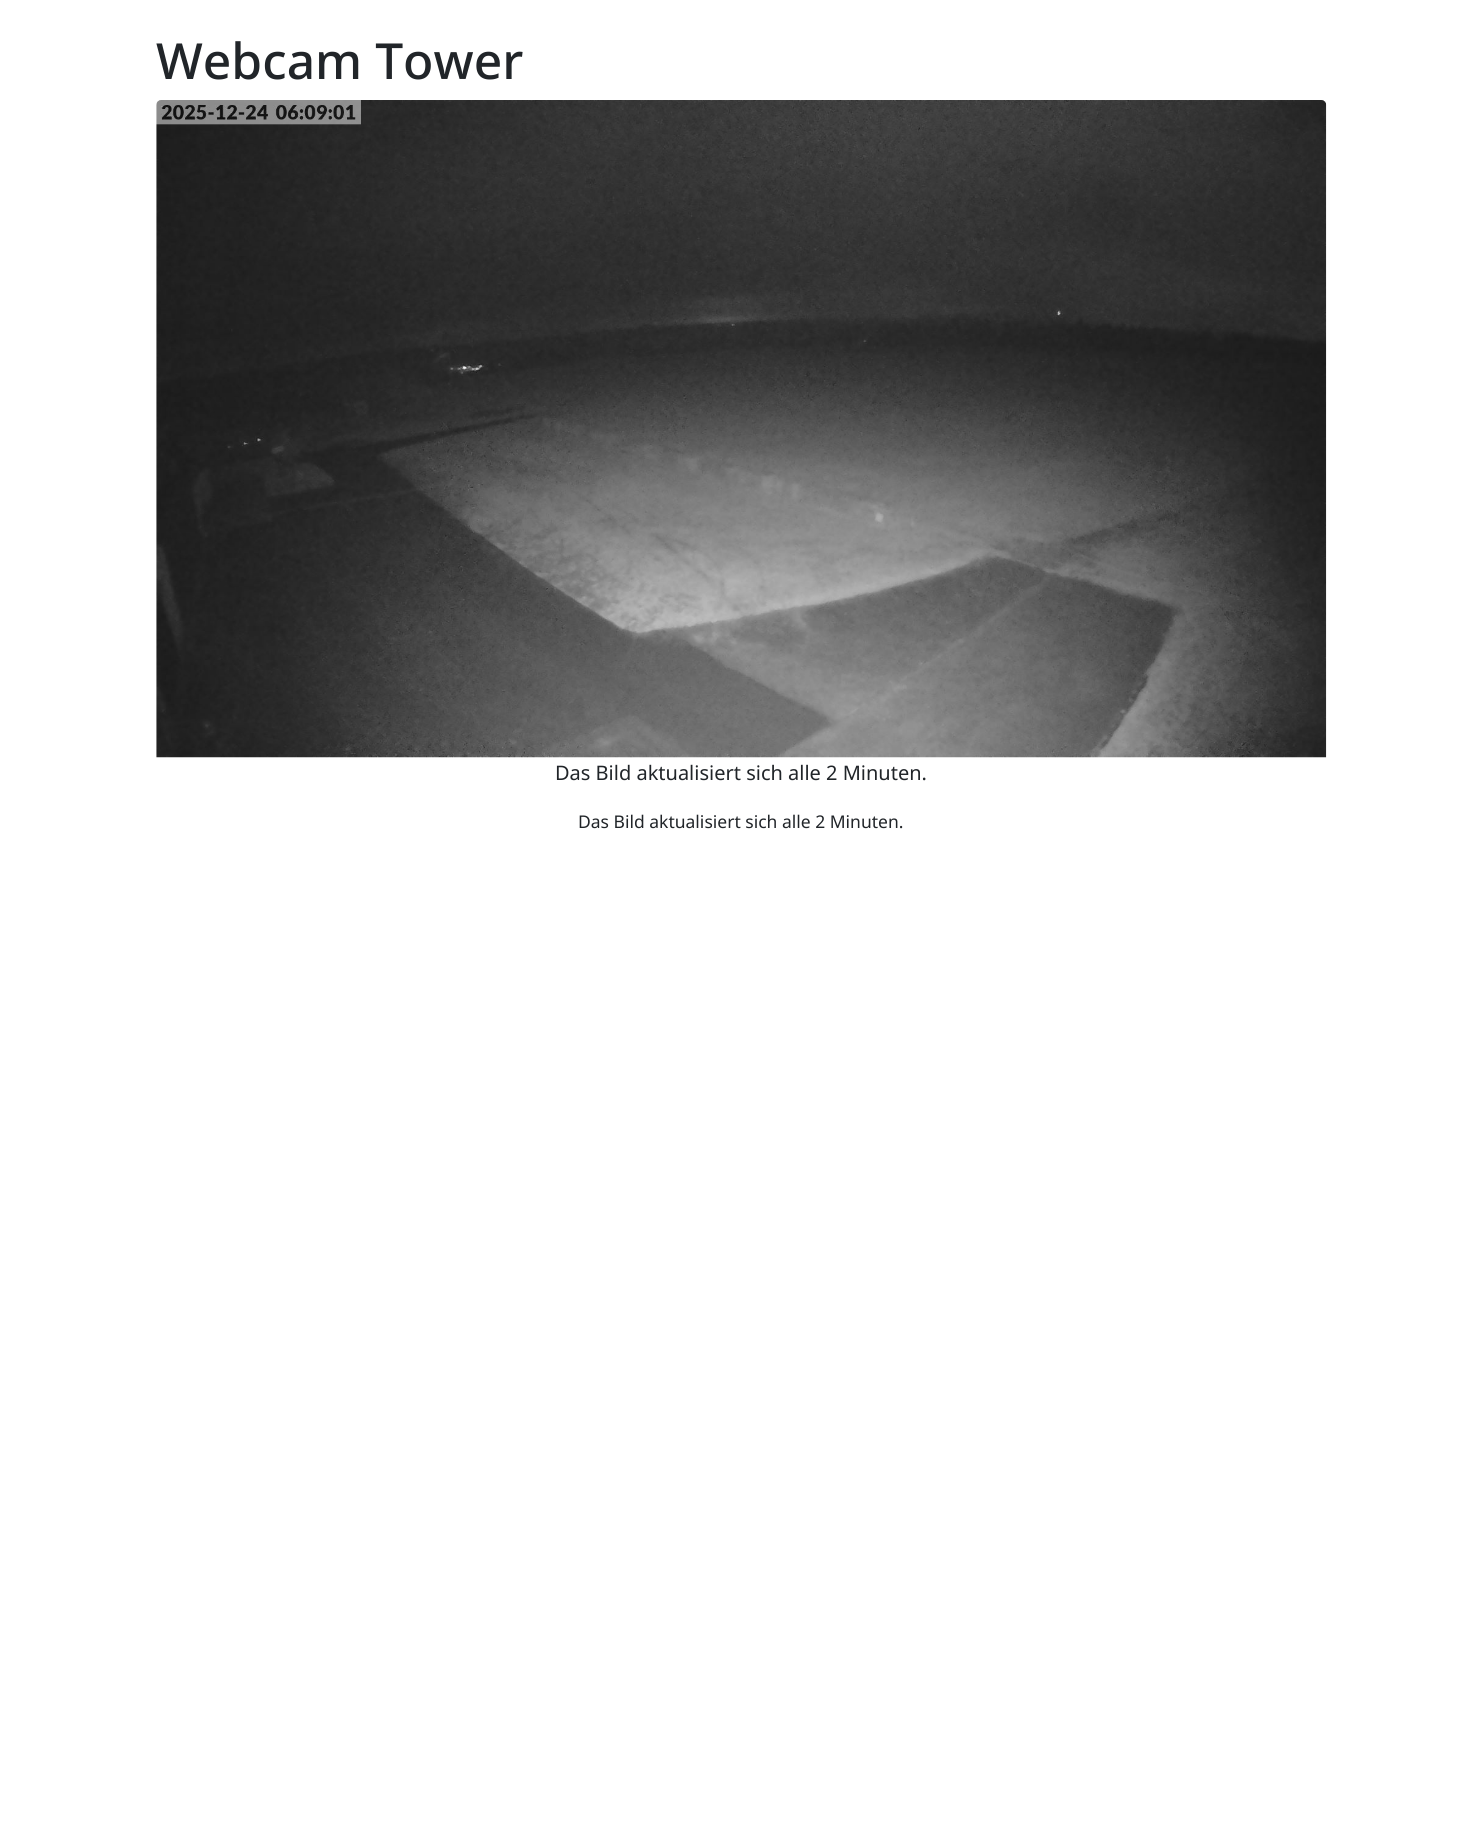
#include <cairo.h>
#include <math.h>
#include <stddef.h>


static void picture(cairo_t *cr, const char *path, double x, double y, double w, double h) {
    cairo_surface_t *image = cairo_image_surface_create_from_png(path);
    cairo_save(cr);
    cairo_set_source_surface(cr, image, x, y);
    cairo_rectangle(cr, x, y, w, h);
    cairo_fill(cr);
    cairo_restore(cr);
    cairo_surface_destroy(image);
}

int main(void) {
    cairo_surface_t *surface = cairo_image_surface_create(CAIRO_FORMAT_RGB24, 1481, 1834);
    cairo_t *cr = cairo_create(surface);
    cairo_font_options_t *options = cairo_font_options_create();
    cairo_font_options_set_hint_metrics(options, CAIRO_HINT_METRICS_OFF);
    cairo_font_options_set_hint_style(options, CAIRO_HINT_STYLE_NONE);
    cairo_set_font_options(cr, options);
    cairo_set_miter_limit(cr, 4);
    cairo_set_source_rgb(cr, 1, 1, 1);
    cairo_paint(cr);
    cairo_select_font_face(cr, "Noto Sans Medium", CAIRO_FONT_SLANT_NORMAL, CAIRO_FONT_WEIGHT_NORMAL);
    cairo_set_font_size(cr, 49.75);
    cairo_set_source_rgb(cr, 0.129, 0.145, 0.161);
    cairo_move_to(cr, 156, 79);
    cairo_show_text(cr, "Webcam Tower");
    picture(cr, "img1.png", 156, 100, 1171, 658);
    cairo_select_font_face(cr, "Noto Sans", CAIRO_FONT_SLANT_NORMAL, CAIRO_FONT_WEIGHT_NORMAL);
    cairo_set_font_size(cr, 20);
    cairo_move_to(cr, 555, 780);
    cairo_show_text(cr, "Das Bild aktualisiert sich alle 2 Minuten.");
    cairo_set_font_size(cr, 17.5);
    cairo_move_to(cr, 578, 828);
    cairo_show_text(cr, "Das Bild aktualisiert sich alle 2 Minuten.");
    cairo_surface_write_to_png(surface, "page.png");
    cairo_font_options_destroy(options);
    cairo_destroy(cr);
    cairo_surface_destroy(surface);
    return 0;
}
